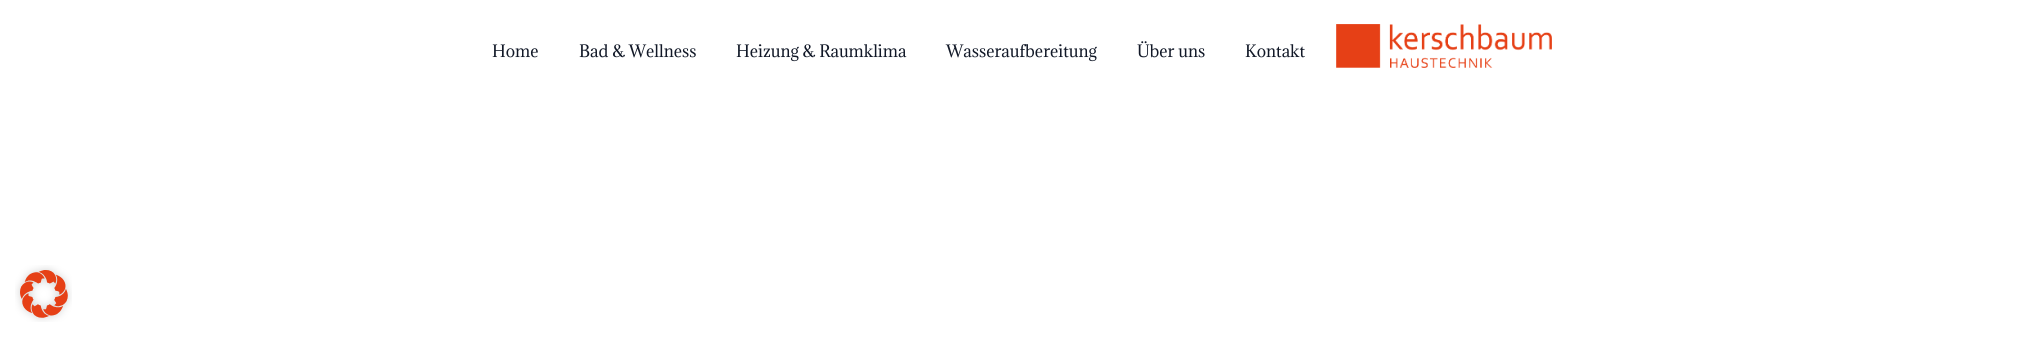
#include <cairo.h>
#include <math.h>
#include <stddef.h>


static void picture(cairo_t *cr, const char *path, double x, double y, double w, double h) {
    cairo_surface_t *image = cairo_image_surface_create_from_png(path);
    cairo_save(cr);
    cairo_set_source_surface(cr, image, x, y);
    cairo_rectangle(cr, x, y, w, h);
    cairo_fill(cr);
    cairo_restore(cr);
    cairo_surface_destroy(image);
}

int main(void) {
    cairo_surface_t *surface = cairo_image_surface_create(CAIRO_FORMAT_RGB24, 2024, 338);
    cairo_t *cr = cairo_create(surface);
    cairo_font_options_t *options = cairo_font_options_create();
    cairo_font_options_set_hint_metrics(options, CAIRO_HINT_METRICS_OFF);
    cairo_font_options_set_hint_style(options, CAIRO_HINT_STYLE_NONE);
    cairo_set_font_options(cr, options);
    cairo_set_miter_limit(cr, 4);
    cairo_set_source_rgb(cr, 1, 1, 1);
    cairo_paint(cr);
    cairo_select_font_face(cr, "Adamina", CAIRO_FONT_SLANT_NORMAL, CAIRO_FONT_WEIGHT_NORMAL);
    cairo_set_font_size(cr, 15.75);
    cairo_set_source_rgb(cr, 0.067, 0.094, 0.153);
    cairo_move_to(cr, 492, 57);
    cairo_show_text(cr, "Home");
    cairo_move_to(cr, 579, 57);
    cairo_show_text(cr, "Bad & Wellness");
    cairo_move_to(cr, 736, 57);
    cairo_show_text(cr, "Heizung & Raumklima");
    cairo_move_to(cr, 946, 57);
    cairo_show_text(cr, "Wasseraufbereitung");
    cairo_move_to(cr, 1137, 57);
    cairo_show_text(cr, "Über uns");
    cairo_move_to(cr, 1245, 57);
    cairo_show_text(cr, "Kontakt");
    picture(cr, "img1.png", 1336, 24, 216, 44);
    picture(cr, "img2.png", 15, 265, 57, 57);
    cairo_surface_write_to_png(surface, "page.png");
    cairo_font_options_destroy(options);
    cairo_destroy(cr);
    cairo_surface_destroy(surface);
    return 0;
}
